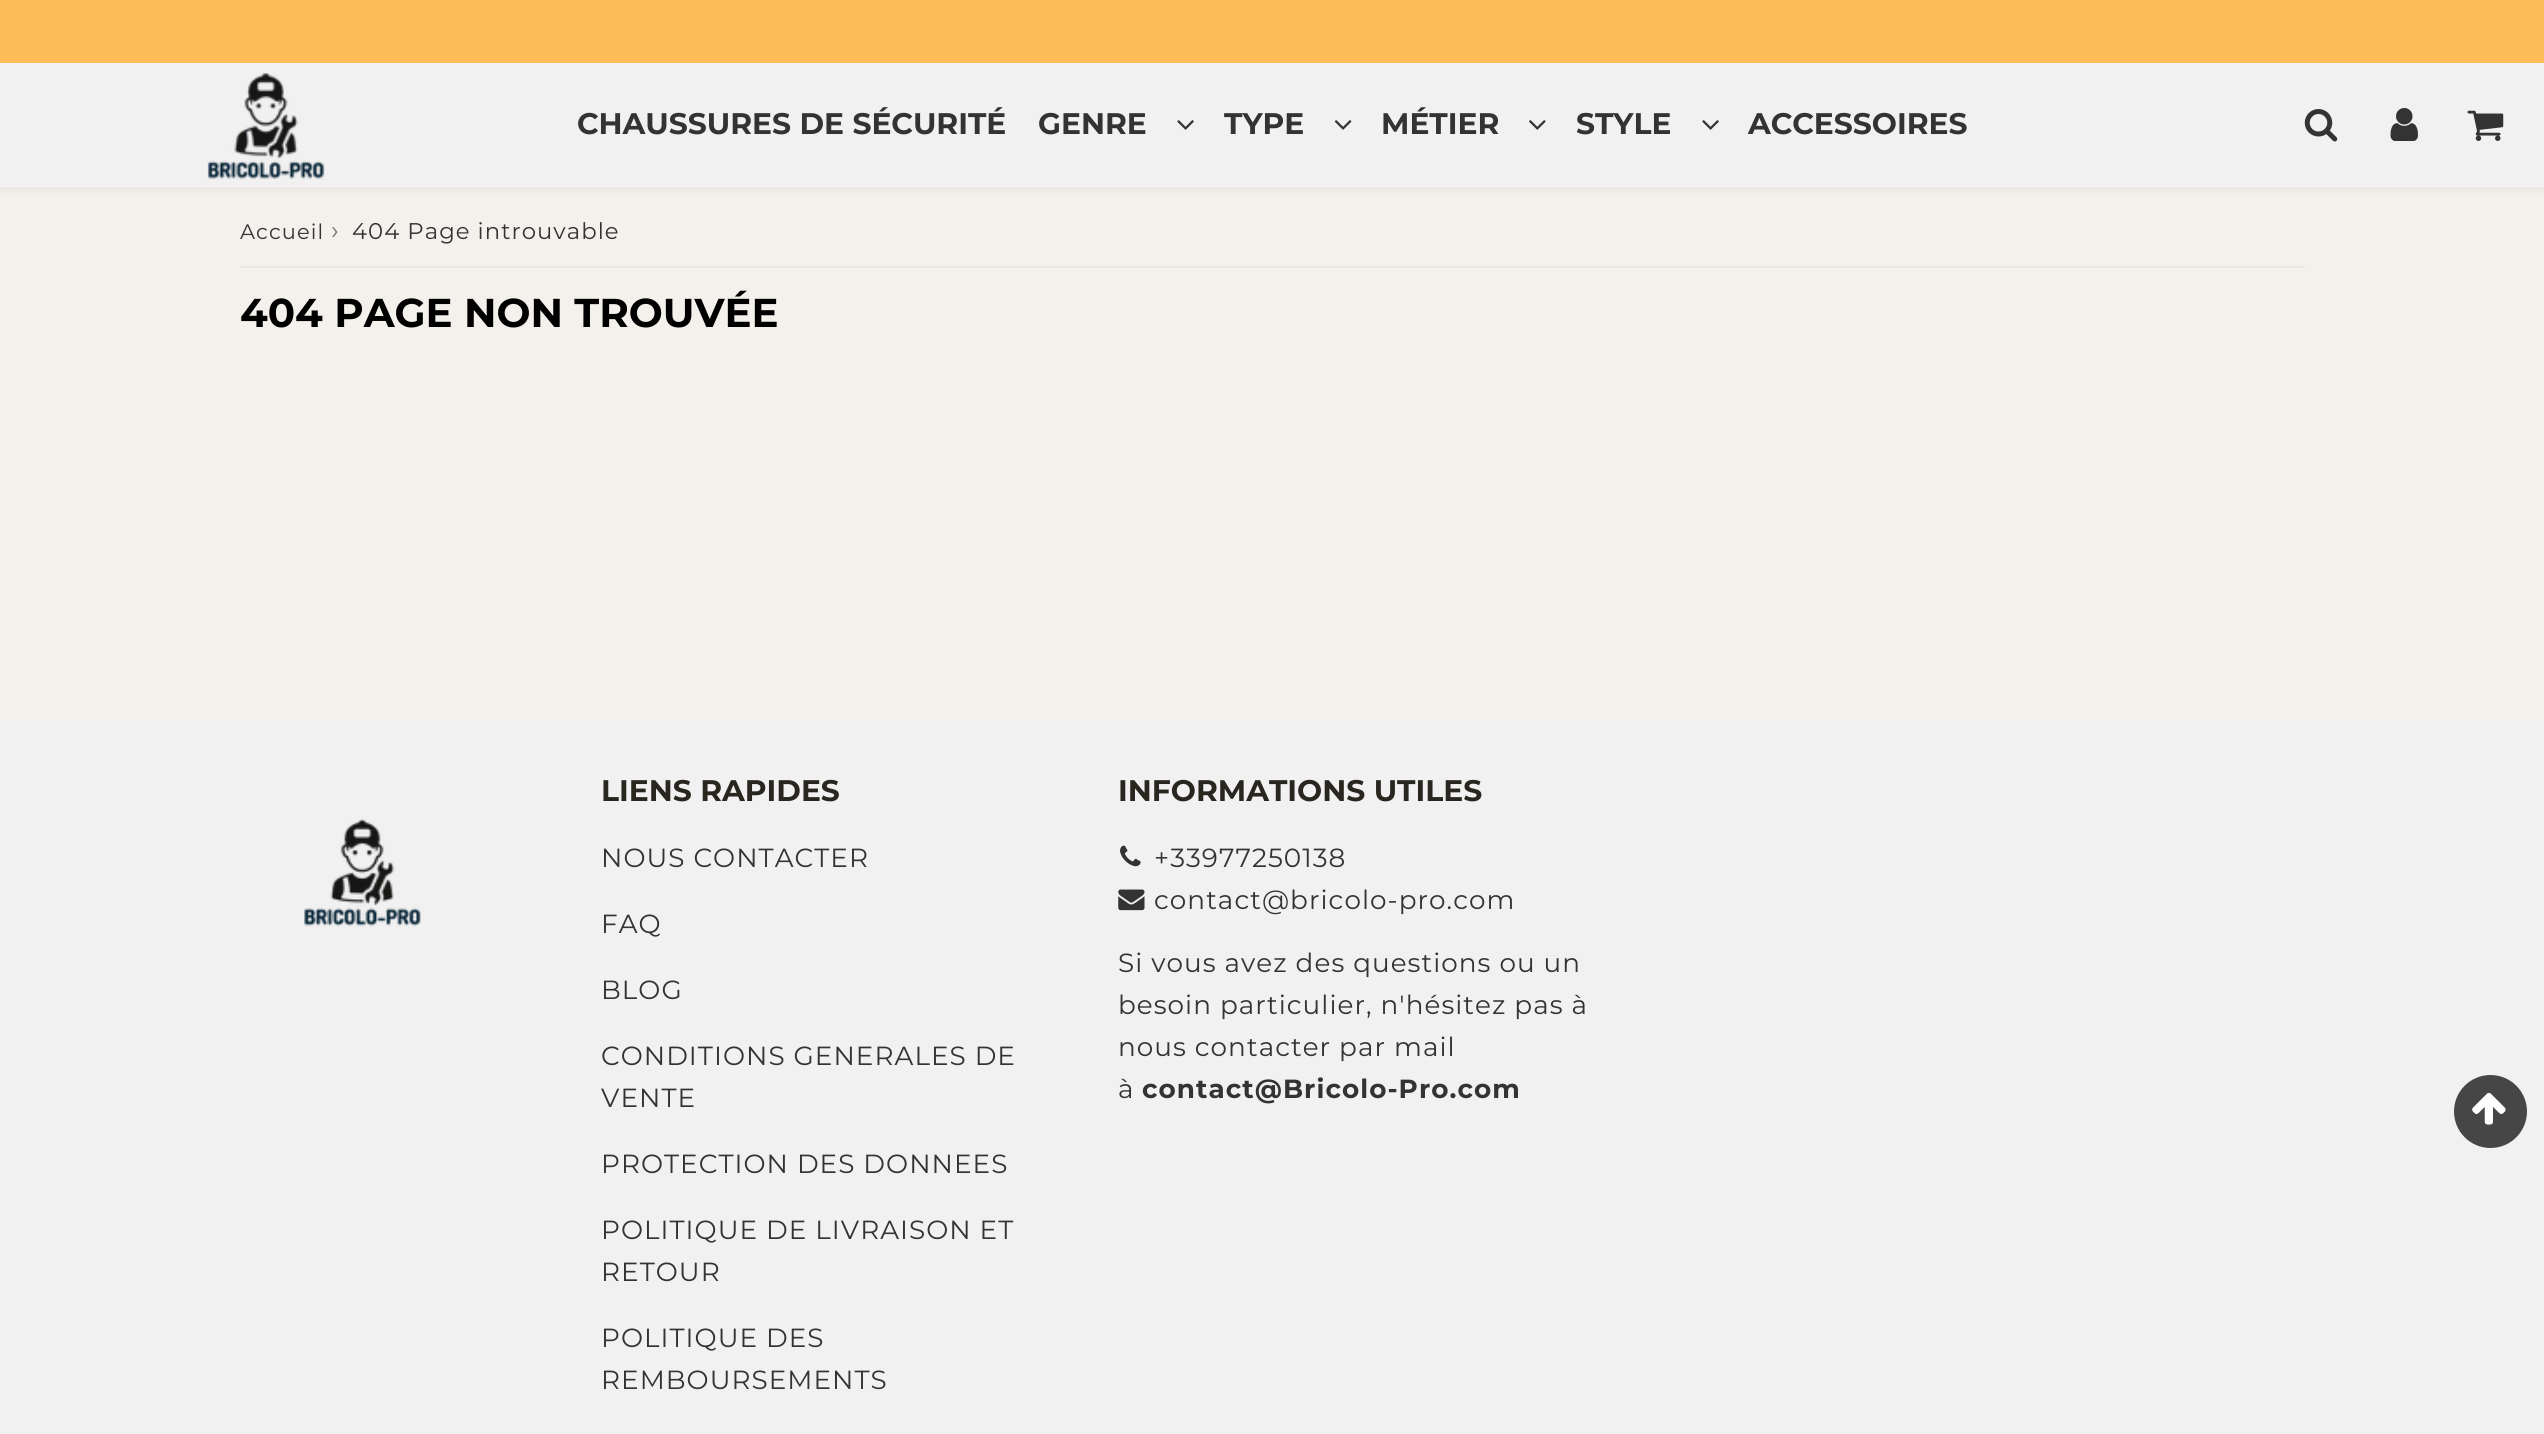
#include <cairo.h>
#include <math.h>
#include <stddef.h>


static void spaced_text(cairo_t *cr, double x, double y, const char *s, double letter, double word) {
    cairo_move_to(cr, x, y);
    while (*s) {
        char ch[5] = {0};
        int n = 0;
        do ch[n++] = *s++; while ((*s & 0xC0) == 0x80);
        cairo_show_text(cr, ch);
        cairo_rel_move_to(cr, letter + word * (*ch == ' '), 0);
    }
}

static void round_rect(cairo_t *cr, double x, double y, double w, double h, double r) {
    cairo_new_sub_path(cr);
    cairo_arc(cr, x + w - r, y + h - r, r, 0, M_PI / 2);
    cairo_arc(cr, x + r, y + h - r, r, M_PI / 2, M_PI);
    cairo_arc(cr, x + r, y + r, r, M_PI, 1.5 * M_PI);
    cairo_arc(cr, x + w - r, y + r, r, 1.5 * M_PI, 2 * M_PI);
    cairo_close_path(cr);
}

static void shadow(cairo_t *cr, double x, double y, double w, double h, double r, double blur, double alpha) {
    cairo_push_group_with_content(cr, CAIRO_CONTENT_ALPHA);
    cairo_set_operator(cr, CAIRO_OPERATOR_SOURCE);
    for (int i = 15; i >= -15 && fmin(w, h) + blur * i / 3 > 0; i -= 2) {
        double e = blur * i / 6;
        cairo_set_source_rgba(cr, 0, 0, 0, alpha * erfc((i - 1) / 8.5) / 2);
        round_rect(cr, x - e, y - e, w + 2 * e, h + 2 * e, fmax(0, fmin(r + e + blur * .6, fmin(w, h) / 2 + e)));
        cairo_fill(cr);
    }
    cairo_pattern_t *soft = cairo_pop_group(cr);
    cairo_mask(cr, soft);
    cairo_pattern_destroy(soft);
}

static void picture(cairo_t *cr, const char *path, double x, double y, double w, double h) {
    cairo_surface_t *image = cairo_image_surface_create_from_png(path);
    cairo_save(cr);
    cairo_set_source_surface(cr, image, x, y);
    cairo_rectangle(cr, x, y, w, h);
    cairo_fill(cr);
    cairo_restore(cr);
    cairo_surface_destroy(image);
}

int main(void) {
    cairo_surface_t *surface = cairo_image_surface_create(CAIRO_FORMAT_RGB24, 2544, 1434);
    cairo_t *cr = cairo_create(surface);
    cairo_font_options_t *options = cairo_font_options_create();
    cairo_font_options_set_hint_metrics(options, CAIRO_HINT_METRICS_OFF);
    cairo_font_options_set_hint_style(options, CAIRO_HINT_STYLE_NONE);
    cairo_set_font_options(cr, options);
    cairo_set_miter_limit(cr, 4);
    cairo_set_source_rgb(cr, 0.957, 0.945, 0.925);
    cairo_paint(cr);
    cairo_set_source_rgb(cr, 0, 0, 0);
    shadow(cr, 0, 4, 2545, 187, 0, 3.5, 0.05);
    cairo_set_source_rgb(cr, 0.945, 0.945, 0.945);
    cairo_rectangle(cr, 0, 63, 2544, 124);
    cairo_fill(cr);
    cairo_set_source_rgb(cr, 1, 0.741, 0.349);
    cairo_rectangle(cr, 0, 0, 2544, 63);
    cairo_fill(cr);
    picture(cr, "img1.png", 207, 73, 118, 106);
    cairo_select_font_face(cr, "Montserrat", CAIRO_FONT_SLANT_NORMAL, CAIRO_FONT_WEIGHT_BOLD);
    cairo_set_font_size(cr, 29.75);
    cairo_set_source_rgb(cr, 0.2, 0.2, 0.2);
    cairo_move_to(cr, 577, 134);
    cairo_show_text(cr, "CHAUSSURES DE SÉCURITÉ");
    cairo_move_to(cr, 1038, 134);
    cairo_show_text(cr, "GENRE");
    picture(cr, "img2.png", 1177, 120, 17, 10);
    cairo_move_to(cr, 1224, 134);
    cairo_show_text(cr, "TYPE");
    picture(cr, "img3.png", 1334, 120, 18, 10);
    cairo_move_to(cr, 1381, 134);
    cairo_show_text(cr, "MÉTIER");
    picture(cr, "img4.png", 1529, 120, 17, 10);
    cairo_move_to(cr, 1576, 134);
    cairo_show_text(cr, "STYLE");
    picture(cr, "img2.png", 1702, 120, 17, 10);
    cairo_move_to(cr, 1748, 134);
    cairo_show_text(cr, "ACCESSOIRES");
    picture(cr, "img5.png", 2304, 109, 34, 33);
    picture(cr, "img6.png", 2390, 108, 28, 33);
    picture(cr, "img7.png", 2467, 110, 37, 31);
    cairo_set_source_rgb(cr, 0.918, 0.91, 0.89);
    cairo_rectangle(cr, 240, 266, 2065, 2);
    cairo_fill(cr);
    cairo_select_font_face(cr, "Montserrat", CAIRO_FONT_SLANT_NORMAL, CAIRO_FONT_WEIGHT_NORMAL);
    cairo_set_font_size(cr, 21);
    cairo_set_source_rgb(cr, 0.2, 0.2, 0.2);
    spaced_text(cr, 240, 239, "Accueil", 1.05, 0);
    cairo_set_font_size(cr, 26.25);
    cairo_set_source_rgb(cr, 0.463, 0.463, 0.463);
    spaced_text(cr, 331, 239, "›", 1.05, 0);
    cairo_set_font_size(cr, 22.75);
    cairo_set_source_rgb(cr, 0.2, 0.2, 0.2);
    spaced_text(cr, 352, 239, "404 Page introuvable", 1.05, 0);
    cairo_select_font_face(cr, "Montserrat", CAIRO_FONT_SLANT_NORMAL, CAIRO_FONT_WEIGHT_BOLD);
    cairo_set_font_size(cr, 40.25);
    cairo_set_source_rgb(cr, 0, 0, 0);
    cairo_move_to(cr, 240, 327);
    cairo_show_text(cr, "404 PAGE NON TROUVÉE");
    cairo_set_source_rgb(cr, 0.945, 0.945, 0.945);
    cairo_rectangle(cr, 0, 721, 2544, 713);
    cairo_fill(cr);
    picture(cr, "img8.png", 304, 818, 117, 109);
    cairo_set_font_size(cr, 29.75);
    cairo_set_source_rgb(cr, 0.157, 0.149, 0.118);
    cairo_move_to(cr, 601, 801);
    cairo_show_text(cr, "LIENS RAPIDES");
    cairo_select_font_face(cr, "Montserrat", CAIRO_FONT_SLANT_NORMAL, CAIRO_FONT_WEIGHT_NORMAL);
    cairo_set_font_size(cr, 26.25);
    cairo_set_source_rgb(cr, 0.2, 0.2, 0.2);
    spaced_text(cr, 601, 867, "NOUS CONTACTER", 1.05, 0);
    spaced_text(cr, 601, 933, "FAQ", 1.05, 0);
    spaced_text(cr, 601, 999, "BLOG", 1.05, 0);
    spaced_text(cr, 601, 1065, "CONDITIONS GENERALES DE", 1.05, 0);
    spaced_text(cr, 601, 1107, "VENTE", 1.05, 0);
    spaced_text(cr, 601, 1173, "PROTECTION DES DONNEES", 1.05, 0);
    spaced_text(cr, 601, 1239, "POLITIQUE DE LIVRAISON ET", 1.05, 0);
    spaced_text(cr, 601, 1281, "RETOUR", 1.05, 0);
    spaced_text(cr, 601, 1347, "POLITIQUE DES", 1.05, 0);
    spaced_text(cr, 601, 1389, "REMBOURSEMENTS", 1.05, 0);
    cairo_select_font_face(cr, "Montserrat", CAIRO_FONT_SLANT_NORMAL, CAIRO_FONT_WEIGHT_BOLD);
    cairo_set_font_size(cr, 29.75);
    cairo_set_source_rgb(cr, 0.157, 0.149, 0.118);
    cairo_move_to(cr, 1118, 801);
    cairo_show_text(cr, "INFORMATIONS UTILES");
    picture(cr, "img9.png", 1120, 845, 21, 22);
    cairo_select_font_face(cr, "Montserrat", CAIRO_FONT_SLANT_NORMAL, CAIRO_FONT_WEIGHT_NORMAL);
    cairo_set_font_size(cr, 26.25);
    cairo_set_source_rgb(cr, 0.2, 0.2, 0.2);
    spaced_text(cr, 1154, 867, "+33977250138", 1.05, 0);
    picture(cr, "img10.png", 1118, 889, 27, 22);
    spaced_text(cr, 1154, 909, "contact@bricolo-pro.com", 1.05, 0);
    spaced_text(cr, 1118, 972, "Si vous avez des questions ou un", 1.05, 0);
    spaced_text(cr, 1118, 1014, "besoin particulier, n'hésitez pas à", 1.05, 0);
    spaced_text(cr, 1118, 1056, "nous contacter par mail", 1.05, 0);
    spaced_text(cr, 1118, 1098, "à", 1.05, 0);
    cairo_select_font_face(cr, "Montserrat", CAIRO_FONT_SLANT_NORMAL, CAIRO_FONT_WEIGHT_BOLD);
    spaced_text(cr, 1142, 1098, "contact@Bricolo-Pro.com", 1.05, 0);
    cairo_set_source_rgb(cr, 0.275, 0.275, 0.275);
    cairo_new_path(cr);
    cairo_arc(cr, 2490.5, 1111.5, 36.5, 0, 2 * M_PI);
    cairo_fill(cr);
    picture(cr, "img11.png", 2472, 1092, 34, 33);
    cairo_surface_write_to_png(surface, "page.png");
    cairo_font_options_destroy(options);
    cairo_destroy(cr);
    cairo_surface_destroy(surface);
    return 0;
}
